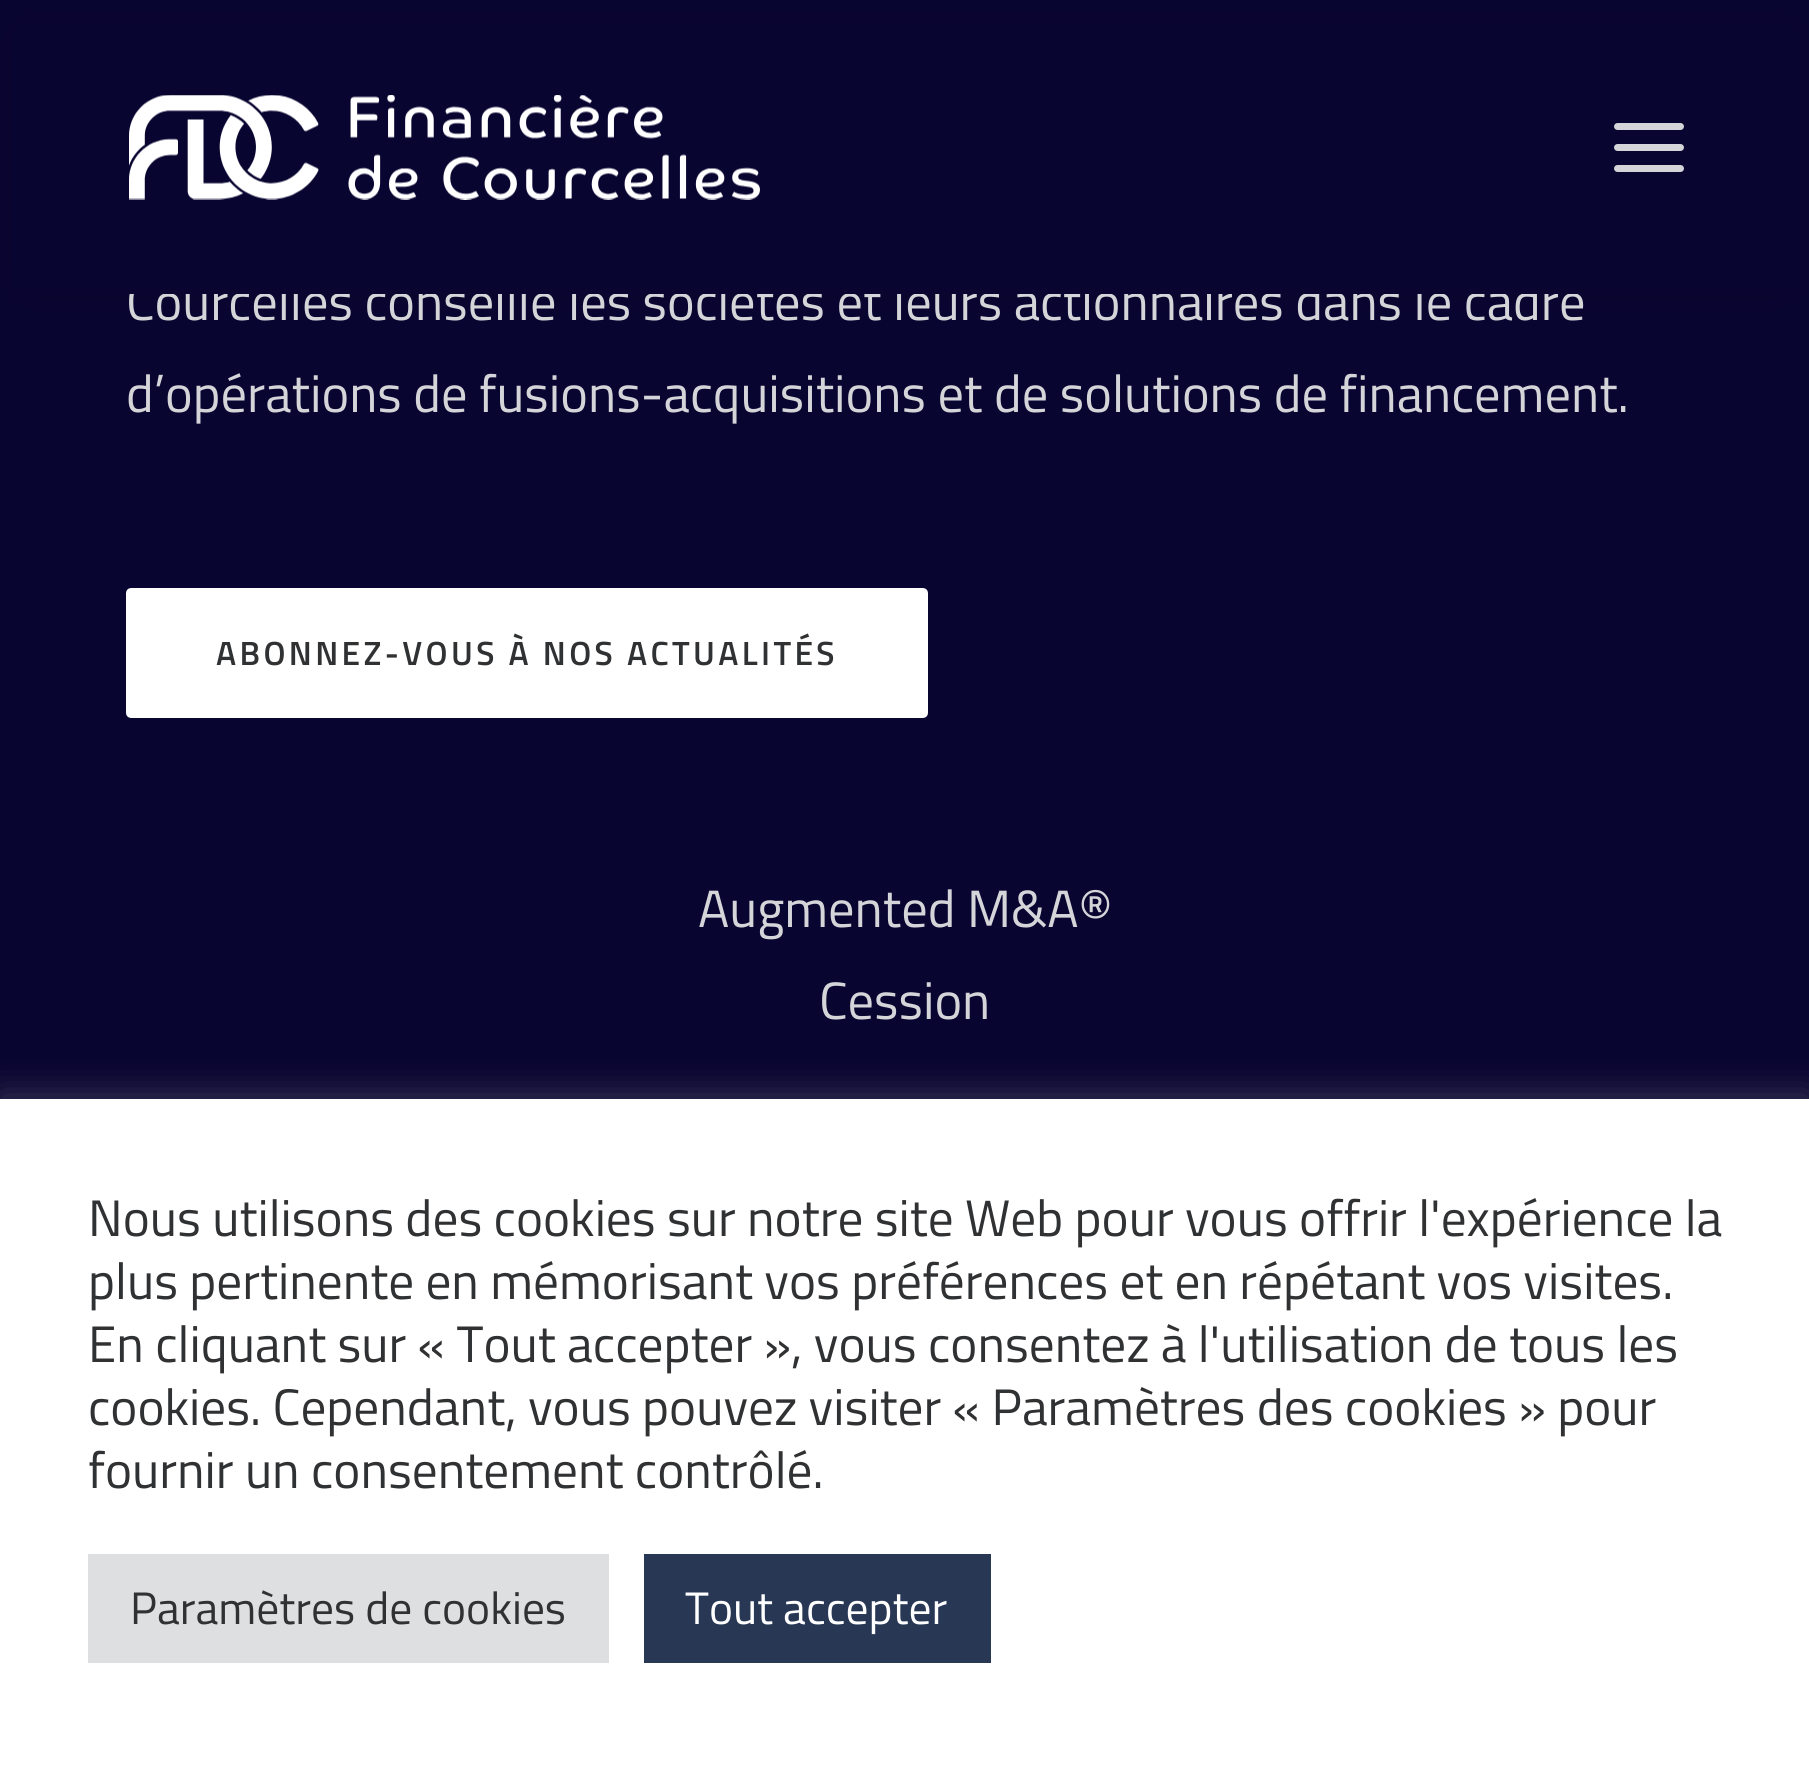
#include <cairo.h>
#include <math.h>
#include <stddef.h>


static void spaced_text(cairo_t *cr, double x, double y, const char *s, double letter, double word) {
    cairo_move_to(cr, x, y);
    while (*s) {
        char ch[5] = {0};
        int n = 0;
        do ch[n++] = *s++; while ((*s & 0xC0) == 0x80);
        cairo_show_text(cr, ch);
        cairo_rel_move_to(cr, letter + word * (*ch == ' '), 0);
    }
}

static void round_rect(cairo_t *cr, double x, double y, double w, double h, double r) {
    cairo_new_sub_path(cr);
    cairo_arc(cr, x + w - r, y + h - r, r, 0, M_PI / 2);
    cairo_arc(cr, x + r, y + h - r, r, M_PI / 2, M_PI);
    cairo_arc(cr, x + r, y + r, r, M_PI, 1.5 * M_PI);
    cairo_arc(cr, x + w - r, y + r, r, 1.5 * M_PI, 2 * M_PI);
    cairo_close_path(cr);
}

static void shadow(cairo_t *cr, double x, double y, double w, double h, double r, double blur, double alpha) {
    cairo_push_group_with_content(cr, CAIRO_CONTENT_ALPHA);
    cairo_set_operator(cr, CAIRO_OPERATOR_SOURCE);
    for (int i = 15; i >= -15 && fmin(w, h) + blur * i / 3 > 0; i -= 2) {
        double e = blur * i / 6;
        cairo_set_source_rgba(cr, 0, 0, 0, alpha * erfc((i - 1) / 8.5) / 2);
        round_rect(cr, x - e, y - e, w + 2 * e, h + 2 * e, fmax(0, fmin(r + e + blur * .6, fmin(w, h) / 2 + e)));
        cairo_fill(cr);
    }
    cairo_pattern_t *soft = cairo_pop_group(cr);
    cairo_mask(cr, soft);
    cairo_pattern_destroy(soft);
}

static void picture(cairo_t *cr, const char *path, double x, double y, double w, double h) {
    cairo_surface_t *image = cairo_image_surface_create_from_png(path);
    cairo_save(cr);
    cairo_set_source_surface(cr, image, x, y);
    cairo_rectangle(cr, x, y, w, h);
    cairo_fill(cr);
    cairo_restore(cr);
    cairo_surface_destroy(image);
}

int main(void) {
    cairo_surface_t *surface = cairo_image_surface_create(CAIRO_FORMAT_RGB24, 1809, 1765);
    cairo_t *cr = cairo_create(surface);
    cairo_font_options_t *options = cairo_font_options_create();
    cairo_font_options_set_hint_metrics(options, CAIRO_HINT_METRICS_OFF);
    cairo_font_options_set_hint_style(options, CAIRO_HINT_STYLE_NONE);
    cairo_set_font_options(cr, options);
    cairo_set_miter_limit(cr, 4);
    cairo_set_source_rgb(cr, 0.039, 0.02, 0.192);
    cairo_paint(cr);
    cairo_set_source_rgb(cr, 0, 0, 0);
    shadow(cr, 35, 49, 1740, 224, 0, 17.5, 0.6);
    cairo_select_font_face(cr, "Titillium Web", CAIRO_FONT_SLANT_NORMAL, CAIRO_FONT_WEIGHT_NORMAL);
    cairo_set_font_size(cr, 52.5);
    cairo_set_source_rgb(cr, 0.831, 0.835, 0.851);
    cairo_move_to(cr, 126, 320);
    cairo_show_text(cr, "Courcelles conseille les sociétés et leurs actionnaires dans le cadre");
    cairo_set_source_rgb(cr, 0.039, 0.02, 0.192);
    cairo_rectangle(cr, 11, 25, 1788, 269);
    cairo_fill(cr);
    picture(cr, "img1.png", 129, 95, 631, 105);
    cairo_set_source_rgb(cr, 0.831, 0.835, 0.851);
    round_rect(cr, 1614, 144, 70, 7, 3.5);
    cairo_fill(cr);
    round_rect(cr, 1614, 123, 70, 7, 3.5);
    cairo_fill(cr);
    round_rect(cr, 1614, 165, 70, 7, 3.5);
    cairo_fill(cr);
    cairo_move_to(cr, 126, 412);
    cairo_show_text(cr, "d’opérations de fusions-acquisitions et de solutions de financement.");
    cairo_set_source_rgb(cr, 1, 1, 1);
    round_rect(cr, 127.5, 589.5, 799, 127, 3.5);
    cairo_fill_preserve(cr);
    cairo_set_line_width(cr, 3);
    cairo_stroke(cr);
    cairo_select_font_face(cr, "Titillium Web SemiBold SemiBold", CAIRO_FONT_SLANT_NORMAL, CAIRO_FONT_WEIGHT_NORMAL);
    cairo_set_font_size(cr, 33.6);
    cairo_set_source_rgb(cr, 0.188, 0.192, 0.2);
    spaced_text(cr, 216, 665, "ABONNEZ-VOUS À NOS ACTUALITÉS", 3.35, 0);
    cairo_select_font_face(cr, "Titillium Web", CAIRO_FONT_SLANT_NORMAL, CAIRO_FONT_WEIGHT_NORMAL);
    cairo_set_font_size(cr, 52.5);
    cairo_set_source_rgb(cr, 0.831, 0.835, 0.851);
    cairo_move_to(cr, 698, 927);
    cairo_show_text(cr, "Augmented M&A®");
    cairo_move_to(cr, 819, 1019);
    cairo_show_text(cr, "Cession");
    cairo_set_source_rgb(cr, 0.675, 0.671, 0.671);
    shadow(cr, 0, 1096, 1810, 668, 0, 17.5, 0.3);
    cairo_set_source_rgb(cr, 1, 1, 1);
    cairo_rectangle(cr, 0, 1099, 1809, 666);
    cairo_fill(cr);
    cairo_set_font_size(cr, 51.3);
    cairo_set_source_rgb(cr, 0.188, 0.192, 0.2);
    cairo_move_to(cr, 88, 1236);
    cairo_show_text(cr, "Nous utilisons des cookies sur notre site Web pour vous offrir l'expérience la");
    cairo_move_to(cr, 88, 1299);
    cairo_show_text(cr, "plus pertinente en mémorisant vos préférences et en répétant vos visites.");
    cairo_move_to(cr, 88, 1362);
    cairo_show_text(cr, "En cliquant sur « Tout accepter », vous consentez à l'utilisation de tous les");
    cairo_move_to(cr, 88, 1425);
    cairo_show_text(cr, "cookies. Cependant, vous pouvez visiter « Paramètres des cookies » pour");
    cairo_move_to(cr, 88, 1488);
    cairo_show_text(cr, "fournir un consentement contrôlé.");
    cairo_set_source_rgb(cr, 0.871, 0.875, 0.878);
    cairo_rectangle(cr, 88, 1554, 521, 109);
    cairo_fill(cr);
    cairo_set_font_size(cr, 45.5);
    cairo_set_source_rgb(cr, 0.188, 0.192, 0.2);
    cairo_move_to(cr, 130, 1624);
    cairo_show_text(cr, "Paramètres de cookies");
    cairo_set_source_rgb(cr, 0.157, 0.216, 0.329);
    cairo_rectangle(cr, 644, 1554, 347, 109);
    cairo_fill(cr);
    cairo_set_source_rgb(cr, 1, 1, 1);
    cairo_move_to(cr, 685, 1624);
    cairo_show_text(cr, "Tout accepter");
    cairo_surface_write_to_png(surface, "page.png");
    cairo_font_options_destroy(options);
    cairo_destroy(cr);
    cairo_surface_destroy(surface);
    return 0;
}
